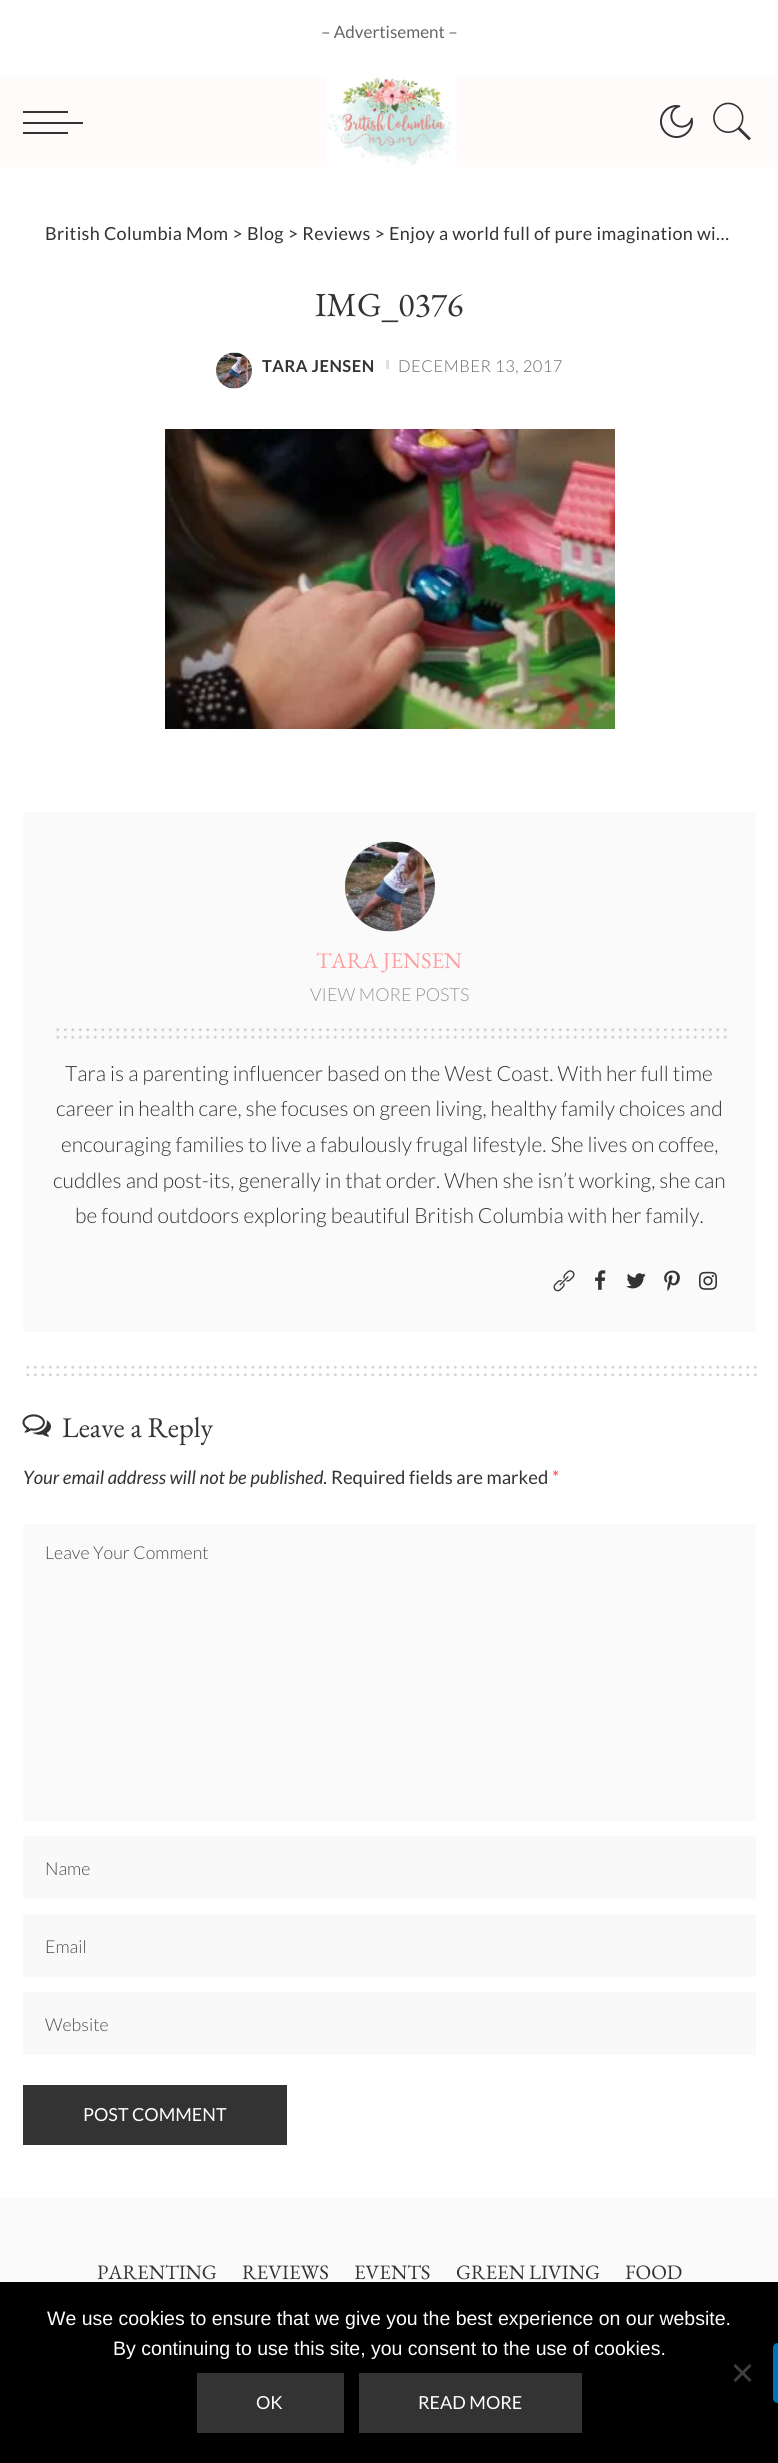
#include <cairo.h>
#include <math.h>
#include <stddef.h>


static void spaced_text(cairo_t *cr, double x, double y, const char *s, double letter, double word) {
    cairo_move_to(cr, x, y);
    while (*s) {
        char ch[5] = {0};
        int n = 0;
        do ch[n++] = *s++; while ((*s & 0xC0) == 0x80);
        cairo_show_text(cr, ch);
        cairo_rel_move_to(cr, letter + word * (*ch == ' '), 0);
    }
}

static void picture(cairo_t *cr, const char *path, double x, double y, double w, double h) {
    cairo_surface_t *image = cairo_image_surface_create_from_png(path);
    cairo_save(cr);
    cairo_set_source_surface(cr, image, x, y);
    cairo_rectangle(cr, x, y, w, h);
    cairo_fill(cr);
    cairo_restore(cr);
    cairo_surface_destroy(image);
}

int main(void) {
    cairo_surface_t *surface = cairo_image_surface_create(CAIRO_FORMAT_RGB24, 778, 2463);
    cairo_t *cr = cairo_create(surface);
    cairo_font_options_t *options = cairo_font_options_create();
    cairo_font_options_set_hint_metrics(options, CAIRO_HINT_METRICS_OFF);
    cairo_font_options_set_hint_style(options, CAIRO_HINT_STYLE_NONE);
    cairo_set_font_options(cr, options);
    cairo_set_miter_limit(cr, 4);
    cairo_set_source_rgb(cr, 1, 1, 1);
    cairo_paint(cr);
    cairo_select_font_face(cr, "Lato", CAIRO_FONT_SLANT_NORMAL, CAIRO_FONT_WEIGHT_NORMAL);
    cairo_set_font_size(cr, 17);
    cairo_set_source_rgb(cr, 0.4, 0.4, 0.4);
    cairo_move_to(cr, 321, 38);
    cairo_show_text(cr, "– Advertisement –");
    cairo_set_source_rgb(cr, 1, 0.984, 0.984);
    cairo_rectangle(cr, 0, 77, 778, 90);
    cairo_fill(cr);
    cairo_set_source_rgb(cr, 0.2, 0.2, 0.2);
    cairo_rectangle(cr, 23, 122, 60, 2);
    cairo_fill(cr);
    cairo_rectangle(cr, 23, 111, 45, 2);
    cairo_fill(cr);
    cairo_rectangle(cr, 23, 132, 45, 2);
    cairo_fill(cr);
    picture(cr, "img1.png", 327, 76, 129, 91);
    picture(cr, "img2.png", 660, 105, 33, 33);
    picture(cr, "img3.png", 713, 102, 38, 39);
    cairo_set_font_size(cr, 18);
    spaced_text(cr, 45, 240, "British Columbia Mom > Blog > Reviews > Enjoy a world full of pure imagination wi…", 0.35, 0);
    cairo_select_font_face(cr, "EB Garamond", CAIRO_FONT_SLANT_NORMAL, CAIRO_FONT_WEIGHT_NORMAL);
    cairo_set_font_size(cr, 33.75);
    cairo_move_to(cr, 315, 316);
    cairo_show_text(cr, "IMG_0376");
    picture(cr, "img4.png", 216, 352, 36, 37);
    cairo_select_font_face(cr, "Lato", CAIRO_FONT_SLANT_NORMAL, CAIRO_FONT_WEIGHT_BOLD);
    cairo_set_font_size(cr, 16.5);
    spaced_text(cr, 262, 372, "TARA JENSEN", 0.5, 0);
    cairo_set_source_rgb(cr, 0.878, 0.878, 0.878);
    cairo_rectangle(cr, 386, 360, 3, 9);
    cairo_fill(cr);
    cairo_select_font_face(cr, "Lato Light", CAIRO_FONT_SLANT_NORMAL, CAIRO_FONT_WEIGHT_NORMAL);
    cairo_set_source_rgb(cr, 0.4, 0.4, 0.4);
    spaced_text(cr, 398, 372, "DECEMBER 13, 2017", 0.5, 0);
    picture(cr, "img5.png", 165, 429, 450, 300);
    cairo_set_source_rgb(cr, 0.98, 0.98, 0.98);
    cairo_rectangle(cr, 23, 812, 733, 520);
    cairo_fill(cr);
    picture(cr, "img6.png", 345, 841, 90, 91);
    cairo_select_font_face(cr, "EB Garamond", CAIRO_FONT_SLANT_NORMAL, CAIRO_FONT_WEIGHT_NORMAL);
    cairo_set_font_size(cr, 22.5);
    cairo_set_source_rgb(cr, 1, 0.62, 0.62);
    cairo_move_to(cr, 316, 968);
    cairo_show_text(cr, "TARA JENSEN");
    cairo_select_font_face(cr, "Lato Light", CAIRO_FONT_SLANT_NORMAL, CAIRO_FONT_WEIGHT_NORMAL);
    cairo_set_font_size(cr, 18);
    cairo_set_source_rgb(cr, 0.592, 0.592, 0.592);
    cairo_move_to(cr, 310, 1001);
    cairo_show_text(cr, "VIEW MORE POSTS");
    cairo_new_path(cr);
    cairo_move_to(cr, 57.8, 1029.8);
    cairo_line_to(cr, 725.5, 1029.8);
    cairo_set_source_rgb(cr, 0.824, 0.824, 0.824);
    cairo_set_line_width(cr, 3);
    cairo_set_line_cap(cr, CAIRO_LINE_CAP_ROUND);
    cairo_set_dash(cr, (double[]){0, 7.5}, 2, 0);
    cairo_stroke(cr);
    cairo_new_path(cr);
    cairo_move_to(cr, 57.8, 1037.2);
    cairo_line_to(cr, 725.5, 1037.2);
    cairo_stroke(cr);
    cairo_set_font_size(cr, 21);
    cairo_set_source_rgb(cr, 0.2, 0.2, 0.2);
    cairo_move_to(cr, 65, 1081);
    cairo_show_text(cr, "Tara is a parenting influencer based on the West Coast. With her full time");
    cairo_move_to(cr, 56, 1116);
    cairo_show_text(cr, "career in health care, she focuses on green living, healthy family choices and");
    cairo_move_to(cr, 61, 1152);
    cairo_show_text(cr, "encouraging families to live a fabulously frugal lifestyle. She lives on coffee,");
    cairo_move_to(cr, 53, 1188);
    cairo_show_text(cr, "cuddles and post-its, generally in that order. When she isn’t working, she can");
    cairo_move_to(cr, 75, 1223);
    cairo_show_text(cr, "be found outdoors exploring beautiful British Columbia with her family.");
    picture(cr, "img7.png", 553, 1270, 22, 22);
    picture(cr, "img8.png", 595, 1270, 11, 20);
    picture(cr, "img9.png", 626, 1273, 20, 16);
    picture(cr, "img10.png", 664, 1270, 16, 21);
    picture(cr, "img11.png", 699, 1271, 18, 19);
    cairo_new_path(cr);
    cairo_move_to(cr, 27.8, 1367.2);
    cairo_line_to(cr, 755.5, 1367.2);
    cairo_set_source_rgb(cr, 0.839, 0.839, 0.839);
    cairo_stroke(cr);
    cairo_new_path(cr);
    cairo_move_to(cr, 27.8, 1374.8);
    cairo_line_to(cr, 755.5, 1374.8);
    cairo_stroke(cr);
    picture(cr, "img12.png", 22, 1414, 29, 23);
    cairo_select_font_face(cr, "EB Garamond", CAIRO_FONT_SLANT_NORMAL, CAIRO_FONT_WEIGHT_NORMAL);
    cairo_set_font_size(cr, 28.5);
    cairo_set_source_rgb(cr, 0.2, 0.2, 0.2);
    cairo_move_to(cr, 62, 1437);
    cairo_show_text(cr, "Leave a Reply");
    cairo_select_font_face(cr, "Lato", CAIRO_FONT_SLANT_ITALIC, CAIRO_FONT_WEIGHT_NORMAL);
    cairo_set_font_size(cr, 18.5);
    cairo_move_to(cr, 23, 1484);
    cairo_show_text(cr, "Your email address will not be published.");
    cairo_select_font_face(cr, "Lato", CAIRO_FONT_SLANT_NORMAL, CAIRO_FONT_WEIGHT_NORMAL);
    cairo_move_to(cr, 331, 1484);
    cairo_show_text(cr, "Required fields are marked");
    cairo_set_source_rgb(cr, 1, 0.271, 0.271);
    cairo_move_to(cr, 552, 1484);
    cairo_show_text(cr, "*");
    cairo_set_source_rgb(cr, 0.98, 0.98, 0.98);
    cairo_rectangle(cr, 23, 1524, 733, 297);
    cairo_fill(cr);
    cairo_select_font_face(cr, "Lato Light", CAIRO_FONT_SLANT_NORMAL, CAIRO_FONT_WEIGHT_NORMAL);
    cairo_set_font_size(cr, 17.75);
    cairo_set_source_rgb(cr, 0.294, 0.294, 0.294);
    cairo_move_to(cr, 45, 1559);
    cairo_show_text(cr, "Leave Your Comment");
    cairo_set_source_rgb(cr, 0.976, 0.976, 0.976);
    cairo_rectangle(cr, 23, 1836, 733, 63);
    cairo_fill(cr);
    cairo_set_source_rgb(cr, 0.294, 0.294, 0.294);
    cairo_move_to(cr, 45, 1875);
    cairo_show_text(cr, "Name");
    cairo_set_source_rgb(cr, 0.976, 0.976, 0.976);
    cairo_rectangle(cr, 23, 1914, 733, 63);
    cairo_fill(cr);
    cairo_set_source_rgb(cr, 0.294, 0.294, 0.294);
    cairo_move_to(cr, 45, 1953);
    cairo_show_text(cr, "Email");
    cairo_set_source_rgb(cr, 0.976, 0.976, 0.976);
    cairo_rectangle(cr, 23, 1992, 733, 63);
    cairo_fill(cr);
    cairo_set_source_rgb(cr, 0.294, 0.294, 0.294);
    cairo_move_to(cr, 45, 2031);
    cairo_show_text(cr, "Website");
    cairo_set_source_rgb(cr, 0.2, 0.2, 0.2);
    cairo_rectangle(cr, 23, 2085, 264, 60);
    cairo_fill(cr);
    cairo_select_font_face(cr, "Lato", CAIRO_FONT_SLANT_NORMAL, CAIRO_FONT_WEIGHT_NORMAL);
    cairo_set_font_size(cr, 18);
    cairo_set_source_rgb(cr, 1, 1, 1);
    cairo_move_to(cr, 83, 2121);
    cairo_show_text(cr, "POST COMMENT");
    cairo_set_source_rgb(cr, 0.98, 0.98, 0.98);
    cairo_rectangle(cr, 0, 2198, 778, 84);
    cairo_fill(cr);
    cairo_select_font_face(cr, "EB Garamond", CAIRO_FONT_SLANT_NORMAL, CAIRO_FONT_WEIGHT_NORMAL);
    cairo_set_font_size(cr, 20.5);
    cairo_set_source_rgb(cr, 0.2, 0.2, 0.2);
    cairo_move_to(cr, 97, 2279);
    cairo_show_text(cr, "PARENTING");
    cairo_move_to(cr, 242, 2279);
    cairo_show_text(cr, "REVIEWS");
    cairo_move_to(cr, 354, 2279);
    cairo_show_text(cr, "EVENTS");
    cairo_move_to(cr, 456, 2279);
    cairo_show_text(cr, "GREEN LIVING");
    cairo_move_to(cr, 625, 2279);
    cairo_show_text(cr, "FOOD");
    cairo_set_source_rgb(cr, 0, 0, 0);
    cairo_rectangle(cr, 0, 2282, 778, 181);
    cairo_fill(cr);
    cairo_select_font_face(cr, "Liberation Sans", CAIRO_FONT_SLANT_NORMAL, CAIRO_FONT_WEIGHT_NORMAL);
    cairo_set_font_size(cr, 19.5);
    cairo_set_source_rgb(cr, 1, 1, 1);
    cairo_move_to(cr, 47, 2325);
    cairo_show_text(cr, "We use cookies to ensure that we give you the best experience on our website.");
    cairo_move_to(cr, 113, 2355);
    cairo_show_text(cr, "By continuing to use this site, you consent to the use of cookies.");
    cairo_set_source_rgb(cr, 0.251, 0.251, 0.251);
    cairo_new_path(cr);
    cairo_move_to(cr, 749.5, 2364);
    cairo_line_to(cr, 751.5, 2366);
    cairo_line_to(cr, 735.5, 2382);
    cairo_line_to(cr, 733.5, 2380);
    cairo_close_path(cr);
    cairo_fill(cr);
    cairo_new_path(cr);
    cairo_move_to(cr, 733.5, 2366);
    cairo_line_to(cr, 735.5, 2364);
    cairo_line_to(cr, 751.5, 2380);
    cairo_line_to(cr, 749.5, 2382);
    cairo_close_path(cr);
    cairo_fill(cr);
    cairo_set_source_rgb(cr, 0.2, 0.2, 0.2);
    cairo_rectangle(cr, 197, 2373, 147, 60);
    cairo_fill(cr);
    cairo_select_font_face(cr, "Lato", CAIRO_FONT_SLANT_NORMAL, CAIRO_FONT_WEIGHT_NORMAL);
    cairo_set_font_size(cr, 18);
    cairo_set_source_rgb(cr, 1, 1, 1);
    cairo_move_to(cr, 256, 2409);
    cairo_show_text(cr, "OK");
    cairo_set_source_rgb(cr, 0.2, 0.2, 0.2);
    cairo_rectangle(cr, 359, 2373, 223, 60);
    cairo_fill(cr);
    cairo_set_source_rgb(cr, 1, 1, 1);
    cairo_move_to(cr, 418, 2409);
    cairo_show_text(cr, "READ MORE");
    cairo_set_source_rgb(cr, 0, 0.451, 0.718);
    cairo_new_path(cr);
    cairo_move_to(cr, 778, 2343);
    cairo_line_to(cr, 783, 2343);
    cairo_line_to(cr, 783, 2403);
    cairo_line_to(cr, 778, 2403);
    cairo_curve_to(cr, 775, 2403, 773, 2401, 773, 2398);
    cairo_line_to(cr, 773, 2348);
    cairo_curve_to(cr, 773, 2345, 775, 2343, 778, 2343);
    cairo_close_path(cr);
    cairo_fill(cr);
    cairo_surface_write_to_png(surface, "page.png");
    cairo_font_options_destroy(options);
    cairo_destroy(cr);
    cairo_surface_destroy(surface);
    return 0;
}
